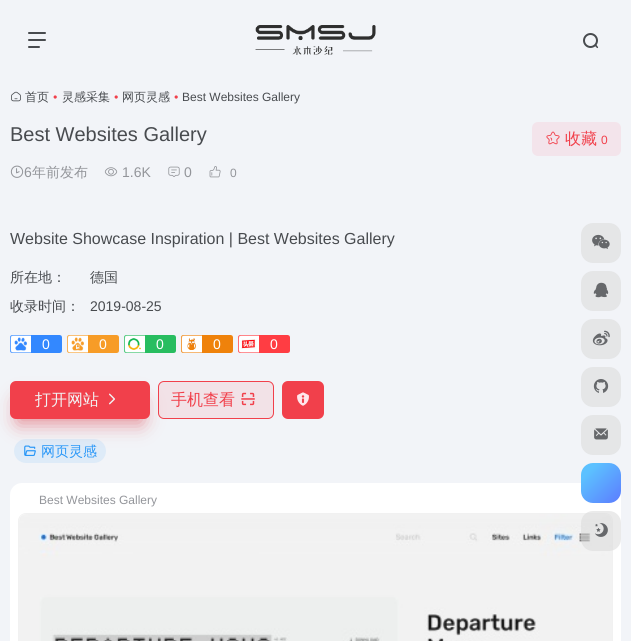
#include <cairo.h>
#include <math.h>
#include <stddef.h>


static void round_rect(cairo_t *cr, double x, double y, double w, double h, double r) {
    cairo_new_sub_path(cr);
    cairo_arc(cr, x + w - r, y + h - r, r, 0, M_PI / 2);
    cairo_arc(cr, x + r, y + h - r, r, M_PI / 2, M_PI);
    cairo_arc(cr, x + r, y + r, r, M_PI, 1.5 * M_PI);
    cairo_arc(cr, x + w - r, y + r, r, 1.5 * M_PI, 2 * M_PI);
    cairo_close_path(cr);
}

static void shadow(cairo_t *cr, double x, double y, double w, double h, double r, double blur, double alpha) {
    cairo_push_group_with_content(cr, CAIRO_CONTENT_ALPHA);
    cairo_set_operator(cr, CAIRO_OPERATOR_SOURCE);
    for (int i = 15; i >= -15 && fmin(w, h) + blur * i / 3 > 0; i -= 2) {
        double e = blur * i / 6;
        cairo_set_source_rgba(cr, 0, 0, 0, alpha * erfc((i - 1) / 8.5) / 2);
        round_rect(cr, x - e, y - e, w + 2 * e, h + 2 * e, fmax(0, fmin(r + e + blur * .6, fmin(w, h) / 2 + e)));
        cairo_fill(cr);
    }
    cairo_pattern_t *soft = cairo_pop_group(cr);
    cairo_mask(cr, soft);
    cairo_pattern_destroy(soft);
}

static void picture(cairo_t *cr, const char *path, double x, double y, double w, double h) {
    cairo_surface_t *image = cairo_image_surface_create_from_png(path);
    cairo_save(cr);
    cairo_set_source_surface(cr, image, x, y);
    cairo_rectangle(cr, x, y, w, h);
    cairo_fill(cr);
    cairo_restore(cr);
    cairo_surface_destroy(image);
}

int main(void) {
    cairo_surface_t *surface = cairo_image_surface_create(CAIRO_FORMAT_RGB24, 631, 641);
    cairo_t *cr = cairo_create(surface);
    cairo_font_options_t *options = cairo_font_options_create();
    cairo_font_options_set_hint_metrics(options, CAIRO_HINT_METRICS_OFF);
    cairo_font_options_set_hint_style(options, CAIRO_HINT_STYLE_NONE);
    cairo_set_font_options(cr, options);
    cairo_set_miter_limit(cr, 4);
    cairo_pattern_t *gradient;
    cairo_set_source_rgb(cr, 0.949, 0.957, 0.969);
    cairo_paint(cr);
    cairo_set_source_rgb(cr, 0.282, 0.294, 0.31);
    round_rect(cr, 28, 32, 18, 2, 1);
    cairo_fill(cr);
    round_rect(cr, 28, 39, 18, 2, 1);
    cairo_fill(cr);
    round_rect(cr, 28, 46, 12, 2, 1);
    cairo_fill(cr);
    picture(cr, "img1.png", 255, 25, 121, 30);
    cairo_arc(cr, 590.5, 40.5, 6.5, 0, 2 * M_PI);
    cairo_stroke(cr);
    cairo_new_path(cr);
    cairo_move_to(cr, 596.5, 45);
    cairo_line_to(cr, 598, 47);
    cairo_curve_to(cr, 598.5, 47.5, 597.5, 48.5, 597, 48);
    cairo_line_to(cr, 596, 47);
    cairo_curve_to(cr, 594, 45.5, 595.5, 44, 596.5, 45);
    cairo_close_path(cr);
    cairo_fill(cr);
    picture(cr, "img2.png", 11, 91, 10, 11);
    cairo_select_font_face(cr, "WenQuanYi Zen Hei Medium", CAIRO_FONT_SLANT_NORMAL, CAIRO_FONT_WEIGHT_NORMAL);
    cairo_set_font_size(cr, 12);
    cairo_move_to(cr, 25, 101);
    cairo_show_text(cr, "首页");
    cairo_select_font_face(cr, "Liberation Sans", CAIRO_FONT_SLANT_ITALIC, CAIRO_FONT_WEIGHT_NORMAL);
    cairo_set_source_rgb(cr, 0.945, 0.251, 0.294);
    cairo_move_to(cr, 53, 101);
    cairo_show_text(cr, "•");
    cairo_select_font_face(cr, "WenQuanYi Zen Hei Medium", CAIRO_FONT_SLANT_NORMAL, CAIRO_FONT_WEIGHT_NORMAL);
    cairo_set_source_rgb(cr, 0.282, 0.294, 0.31);
    cairo_move_to(cr, 62, 101);
    cairo_show_text(cr, "灵感采集");
    cairo_select_font_face(cr, "Liberation Sans", CAIRO_FONT_SLANT_ITALIC, CAIRO_FONT_WEIGHT_NORMAL);
    cairo_set_source_rgb(cr, 0.945, 0.251, 0.294);
    cairo_move_to(cr, 114, 101);
    cairo_show_text(cr, "•");
    cairo_select_font_face(cr, "WenQuanYi Zen Hei Medium", CAIRO_FONT_SLANT_NORMAL, CAIRO_FONT_WEIGHT_NORMAL);
    cairo_set_source_rgb(cr, 0.282, 0.294, 0.31);
    cairo_move_to(cr, 122, 101);
    cairo_show_text(cr, "网页灵感");
    cairo_select_font_face(cr, "Liberation Sans", CAIRO_FONT_SLANT_ITALIC, CAIRO_FONT_WEIGHT_NORMAL);
    cairo_set_source_rgb(cr, 0.945, 0.251, 0.294);
    cairo_move_to(cr, 174, 101);
    cairo_show_text(cr, "•");
    cairo_select_font_face(cr, "Liberation Sans", CAIRO_FONT_SLANT_NORMAL, CAIRO_FONT_WEIGHT_NORMAL);
    cairo_set_source_rgb(cr, 0.282, 0.294, 0.31);
    cairo_move_to(cr, 182, 101);
    cairo_show_text(cr, "Best Websites Gallery");
    cairo_set_font_size(cr, 20);
    cairo_move_to(cr, 10, 141);
    cairo_show_text(cr, "Best Websites Gallery");
    picture(cr, "img3.png", 10, 165, 14, 13);
    cairo_set_font_size(cr, 14);
    cairo_set_source_rgb(cr, 0.576, 0.584, 0.604);
    cairo_move_to(cr, 24, 177);
    cairo_show_text(cr, "6");
    cairo_select_font_face(cr, "WenQuanYi Zen Hei Medium", CAIRO_FONT_SLANT_NORMAL, CAIRO_FONT_WEIGHT_NORMAL);
    cairo_move_to(cr, 32, 177);
    cairo_show_text(cr, "年前发布");
    picture(cr, "img4.png", 104, 167, 14, 10);
    cairo_select_font_face(cr, "Liberation Sans", CAIRO_FONT_SLANT_NORMAL, CAIRO_FONT_WEIGHT_NORMAL);
    cairo_move_to(cr, 122, 177);
    cairo_show_text(cr, "1.6K");
    picture(cr, "img5.png", 168, 166, 12, 11);
    cairo_move_to(cr, 184, 177);
    cairo_show_text(cr, "0");
    picture(cr, "img6.png", 209, 166, 12, 12);
    cairo_set_font_size(cr, 12);
    cairo_move_to(cr, 230, 177);
    cairo_show_text(cr, "0");
    cairo_set_source_rgb(cr, 0.953, 0.894, 0.918);
    round_rect(cr, 532, 122, 89, 34, 6);
    cairo_fill(cr);
    picture(cr, "img7.png", 546, 131, 14, 14);
    cairo_select_font_face(cr, "WenQuanYi Zen Hei Medium", CAIRO_FONT_SLANT_NORMAL, CAIRO_FONT_WEIGHT_NORMAL);
    cairo_set_font_size(cr, 16);
    cairo_set_source_rgb(cr, 0.945, 0.251, 0.294);
    cairo_move_to(cr, 565, 144);
    cairo_show_text(cr, "收藏");
    cairo_select_font_face(cr, "Liberation Sans", CAIRO_FONT_SLANT_NORMAL, CAIRO_FONT_WEIGHT_NORMAL);
    cairo_set_font_size(cr, 12);
    cairo_move_to(cr, 601, 144);
    cairo_show_text(cr, "0");
    cairo_set_font_size(cr, 16);
    cairo_set_source_rgb(cr, 0.282, 0.294, 0.31);
    cairo_move_to(cr, 10, 244);
    cairo_show_text(cr, "Website Showcase Inspiration | Best Websites Gallery");
    cairo_select_font_face(cr, "WenQuanYi Zen Hei Medium", CAIRO_FONT_SLANT_NORMAL, CAIRO_FONT_WEIGHT_NORMAL);
    cairo_set_font_size(cr, 14);
    cairo_move_to(cr, 10, 282);
    cairo_show_text(cr, "所在地：");
    cairo_move_to(cr, 90, 282);
    cairo_show_text(cr, "德国");
    cairo_move_to(cr, 10, 311);
    cairo_show_text(cr, "收录时间：");
    cairo_select_font_face(cr, "Liberation Sans", CAIRO_FONT_SLANT_NORMAL, CAIRO_FONT_WEIGHT_NORMAL);
    cairo_move_to(cr, 90, 311);
    cairo_show_text(cr, "2019-08-25");
    picture(cr, "img8.png", 10, 335, 52, 18);
    cairo_set_source_rgb(cr, 1, 1, 1);
    cairo_move_to(cr, 42, 349);
    cairo_show_text(cr, "0");
    picture(cr, "img9.png", 67, 335, 52, 18);
    cairo_move_to(cr, 99, 349);
    cairo_show_text(cr, "0");
    picture(cr, "img10.png", 124, 335, 52, 18);
    cairo_move_to(cr, 156, 349);
    cairo_show_text(cr, "0");
    picture(cr, "img11.png", 181, 335, 52, 18);
    cairo_move_to(cr, 213, 349);
    cairo_show_text(cr, "0");
    picture(cr, "img12.png", 238, 335, 52, 18);
    cairo_move_to(cr, 270, 349);
    cairo_show_text(cr, "0");
    cairo_set_source_rgb(cr, 0.863, 0.255, 0.294);
    shadow(cr, 18, 401, 124, 22, 0, 10, 0.6);
    cairo_set_source_rgb(cr, 0.945, 0.251, 0.294);
    round_rect(cr, 10, 381, 140, 38, 6);
    cairo_fill(cr);
    cairo_select_font_face(cr, "WenQuanYi Zen Hei Medium", CAIRO_FONT_SLANT_NORMAL, CAIRO_FONT_WEIGHT_NORMAL);
    cairo_set_font_size(cr, 16);
    cairo_set_source_rgb(cr, 0.945, 0.949, 0.953);
    cairo_move_to(cr, 35, 405);
    cairo_show_text(cr, "打开网站");
    picture(cr, "img13.png", 109, 393, 6, 12);
    cairo_set_source_rgba(cr, 0.945, 0.251, 0.294, 0.1);
    round_rect(cr, 158.5, 381.5, 115, 37, 5.5);
    cairo_fill_preserve(cr);
    cairo_set_source_rgb(cr, 0.945, 0.251, 0.294);
    cairo_set_line_width(cr, 1);
    cairo_stroke(cr);
    cairo_move_to(cr, 171, 405);
    cairo_show_text(cr, "手机查看");
    picture(cr, "img14.png", 241, 392, 14, 14);
    round_rect(cr, 282, 381, 42, 38, 6);
    cairo_fill(cr);
    picture(cr, "img15.png", 297, 392, 12, 14);
    cairo_set_source_rgba(cr, 0.161, 0.592, 0.969, 0.1);
    round_rect(cr, 14, 439, 92, 24, 12);
    cairo_fill(cr);
    picture(cr, "img16.png", 24, 445, 12, 11);
    cairo_set_font_size(cr, 14);
    cairo_set_source_rgb(cr, 0.161, 0.592, 0.969);
    cairo_move_to(cr, 41, 456);
    cairo_show_text(cr, "网页灵感");
    cairo_set_source_rgb(cr, 1, 1, 1);
    round_rect(cr, 10, 483, 611, 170, 12);
    cairo_fill(cr);
    cairo_select_font_face(cr, "Liberation Sans", CAIRO_FONT_SLANT_NORMAL, CAIRO_FONT_WEIGHT_NORMAL);
    cairo_set_font_size(cr, 12);
    cairo_set_source_rgb(cr, 0.576, 0.584, 0.604);
    cairo_move_to(cr, 39, 504);
    cairo_show_text(cr, "Best Websites Gallery");
    round_rect(cr, 18.5, 513.5, 594, 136, 7.5);
    cairo_set_source_rgb(cr, 0.945, 0.945, 0.945);
    cairo_stroke(cr);
    picture(cr, "img17.png", 19, 514, 593, 127);
    cairo_set_source_rgb(cr, 0.898, 0.902, 0.906);
    round_rect(cr, 581, 223, 40, 40, 12);
    cairo_fill(cr);
    picture(cr, "img18.png", 592, 234, 18, 15);
    round_rect(cr, 581, 271, 40, 40, 12);
    cairo_fill(cr);
    picture(cr, "img19.png", 593, 282, 16, 16);
    round_rect(cr, 581, 319, 40, 40, 12);
    cairo_fill(cr);
    picture(cr, "img20.png", 592, 330, 18, 16);
    round_rect(cr, 581, 367, 40, 40, 12);
    cairo_fill(cr);
    picture(cr, "img21.png", 593, 379, 16, 14);
    round_rect(cr, 581, 415, 40, 40, 12);
    cairo_fill(cr);
    picture(cr, "img22.png", 594, 428, 14, 12);
    gradient = cairo_pattern_create_linear(581, 463, 621, 503);
    cairo_pattern_add_color_stop_rgba(gradient, 0.2, 0.361, 0.757, 1, 1);
    cairo_pattern_add_color_stop_rgba(gradient, 1, 0.361, 0.486, 1, 1);
    cairo_set_source(cr, gradient);
    cairo_pattern_destroy(gradient);
    round_rect(cr, 581, 463, 40, 40, 12);
    cairo_fill(cr);
    cairo_set_source_rgba(cr, 0.863, 0.863, 0.863, 0.6);
    round_rect(cr, 581, 511, 40, 40, 12);
    cairo_fill(cr);
    picture(cr, "img23.png", 595, 523, 13, 14);
    cairo_surface_write_to_png(surface, "page.png");
    cairo_font_options_destroy(options);
    cairo_destroy(cr);
    cairo_surface_destroy(surface);
    return 0;
}
